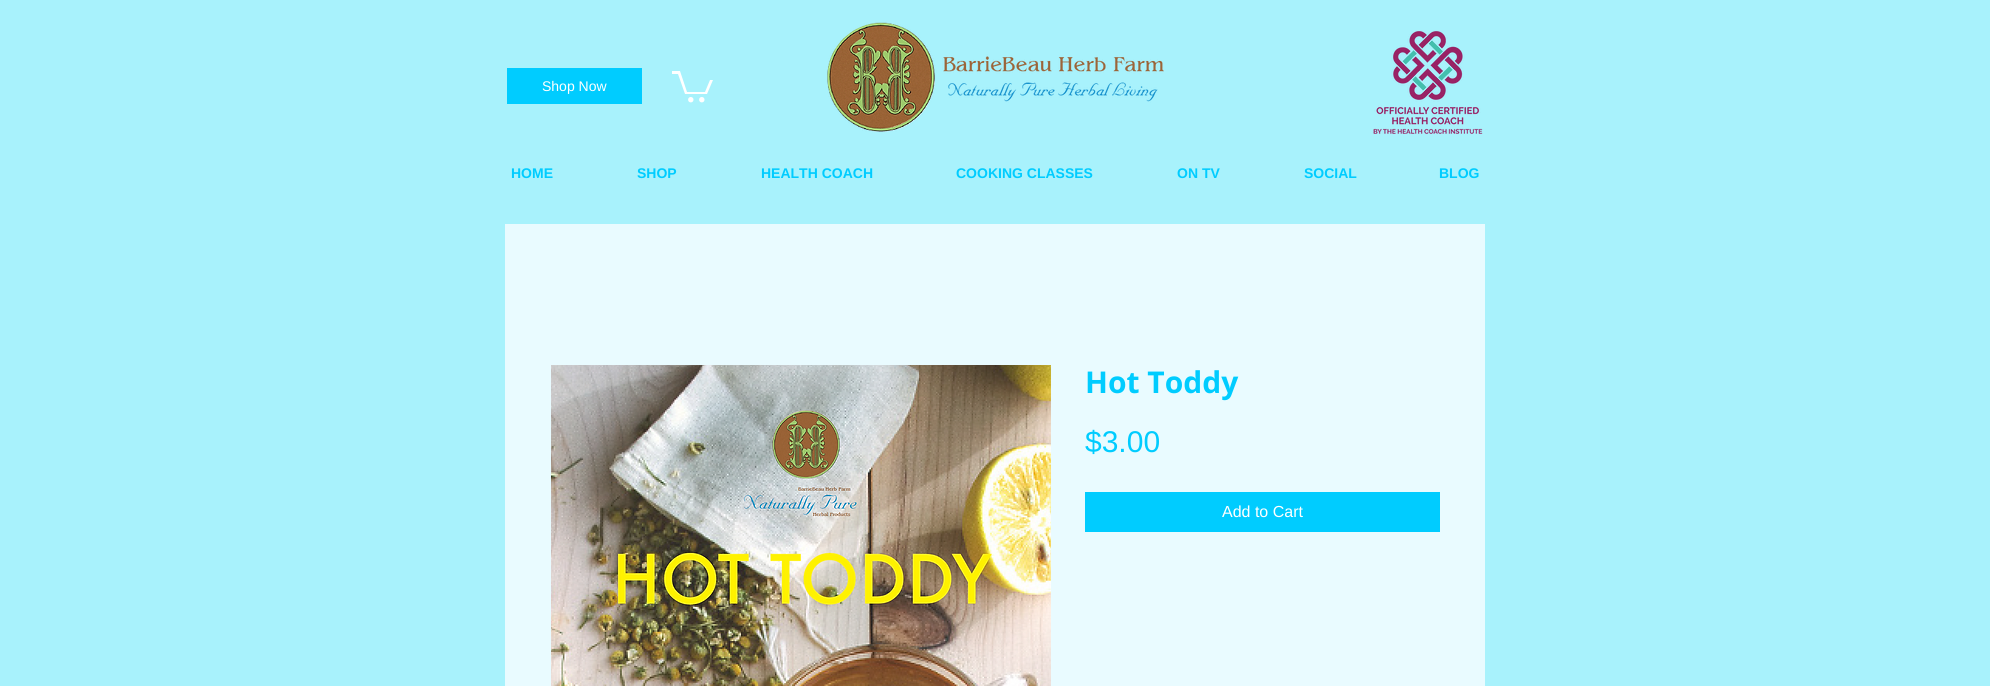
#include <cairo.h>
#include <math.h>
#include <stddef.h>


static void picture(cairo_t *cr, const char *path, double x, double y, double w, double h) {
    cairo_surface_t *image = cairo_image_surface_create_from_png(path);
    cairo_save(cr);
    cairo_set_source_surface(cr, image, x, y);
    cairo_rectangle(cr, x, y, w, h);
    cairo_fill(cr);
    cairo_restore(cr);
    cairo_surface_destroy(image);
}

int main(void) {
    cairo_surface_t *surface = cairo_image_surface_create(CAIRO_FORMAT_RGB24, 1990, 686);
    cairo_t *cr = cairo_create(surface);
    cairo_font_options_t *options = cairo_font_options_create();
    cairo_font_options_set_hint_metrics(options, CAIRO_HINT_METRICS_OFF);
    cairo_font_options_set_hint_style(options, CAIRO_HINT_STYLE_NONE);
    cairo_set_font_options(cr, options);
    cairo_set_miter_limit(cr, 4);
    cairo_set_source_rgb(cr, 0.659, 0.949, 0.988);
    cairo_paint(cr);
    cairo_set_source_rgb(cr, 0, 0.8, 1);
    cairo_rectangle(cr, 507, 68, 135, 36);
    cairo_fill(cr);
    cairo_select_font_face(cr, "Liberation Sans", CAIRO_FONT_SLANT_NORMAL, CAIRO_FONT_WEIGHT_NORMAL);
    cairo_set_font_size(cr, 14);
    cairo_set_source_rgb(cr, 1, 1, 1);
    cairo_move_to(cr, 542, 91);
    cairo_show_text(cr, "Shop Now");
    cairo_new_path(cr);
    cairo_move_to(cr, 713, 80);
    cairo_line_to(cr, 707, 94);
    cairo_line_to(cr, 685, 94);
    cairo_line_to(cr, 678, 74);
    cairo_line_to(cr, 672, 74);
    cairo_line_to(cr, 672, 71);
    cairo_line_to(cr, 680, 71);
    cairo_line_to(cr, 687, 92);
    cairo_line_to(cr, 705, 92);
    cairo_line_to(cr, 710, 80);
    cairo_fill(cr);
    cairo_arc(cr, 701.8, 99.7, 2.7, 0, 2 * M_PI);
    cairo_fill(cr);
    cairo_arc(cr, 690.8, 99.7, 2.7, 0, 2 * M_PI);
    cairo_fill(cr);
    picture(cr, "img1.png", 827, 22, 337, 110);
    picture(cr, "img2.png", 1373, 31, 110, 103);
    cairo_select_font_face(cr, "Liberation Sans", CAIRO_FONT_SLANT_NORMAL, CAIRO_FONT_WEIGHT_BOLD);
    cairo_set_source_rgb(cr, 0, 0.8, 1);
    cairo_move_to(cr, 511, 178);
    cairo_show_text(cr, "HOME");
    cairo_move_to(cr, 637, 178);
    cairo_show_text(cr, "SHOP");
    cairo_move_to(cr, 761, 178);
    cairo_show_text(cr, "HEALTH COACH");
    cairo_move_to(cr, 956, 178);
    cairo_show_text(cr, "COOKING CLASSES");
    cairo_move_to(cr, 1177, 178);
    cairo_show_text(cr, "ON TV");
    cairo_move_to(cr, 1304, 178);
    cairo_show_text(cr, "SOCIAL");
    cairo_move_to(cr, 1439, 178);
    cairo_show_text(cr, "BLOG");
    cairo_set_source_rgb(cr, 0.914, 0.984, 1);
    cairo_rectangle(cr, 505, 224, 980, 462);
    cairo_fill(cr);
    picture(cr, "img3.png", 551, 365, 500, 321);
    cairo_select_font_face(cr, "Open Sans", CAIRO_FONT_SLANT_NORMAL, CAIRO_FONT_WEIGHT_BOLD);
    cairo_set_font_size(cr, 30);
    cairo_set_source_rgb(cr, 0, 0.8, 1);
    cairo_move_to(cr, 1085, 393);
    cairo_show_text(cr, "Hot Toddy");
    cairo_select_font_face(cr, "Liberation Sans", CAIRO_FONT_SLANT_NORMAL, CAIRO_FONT_WEIGHT_NORMAL);
    cairo_move_to(cr, 1085, 452);
    cairo_show_text(cr, "$3.00");
    cairo_rectangle(cr, 1085, 492, 355, 40);
    cairo_fill(cr);
    cairo_set_font_size(cr, 16);
    cairo_set_source_rgb(cr, 1, 1, 1);
    cairo_move_to(cr, 1222, 517);
    cairo_show_text(cr, "Add to Cart");
    cairo_surface_write_to_png(surface, "page.png");
    cairo_font_options_destroy(options);
    cairo_destroy(cr);
    cairo_surface_destroy(surface);
    return 0;
}
